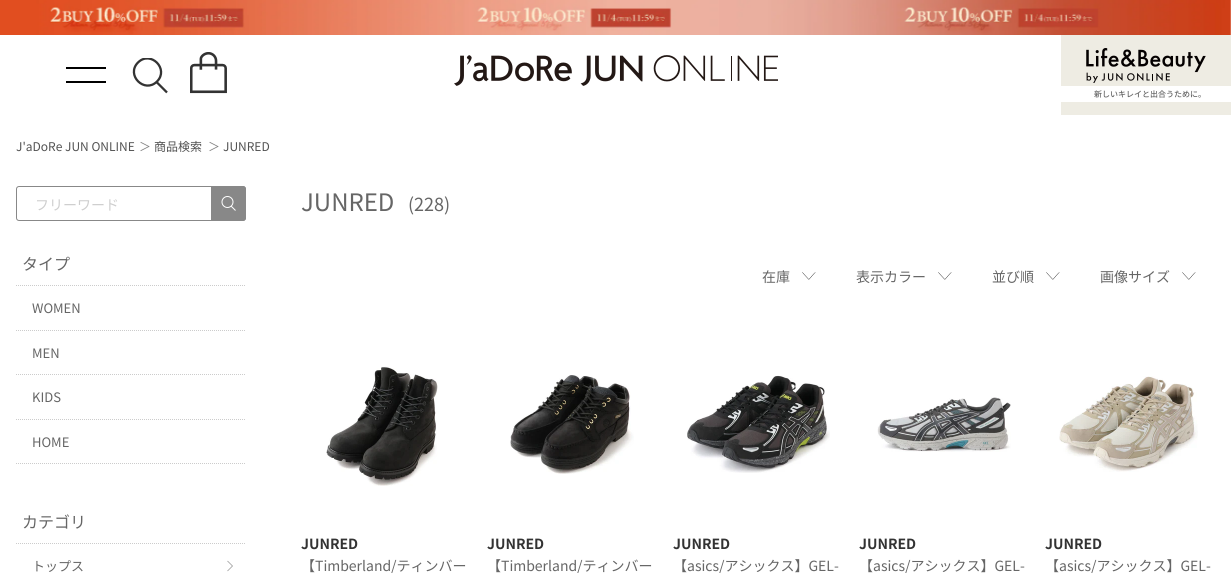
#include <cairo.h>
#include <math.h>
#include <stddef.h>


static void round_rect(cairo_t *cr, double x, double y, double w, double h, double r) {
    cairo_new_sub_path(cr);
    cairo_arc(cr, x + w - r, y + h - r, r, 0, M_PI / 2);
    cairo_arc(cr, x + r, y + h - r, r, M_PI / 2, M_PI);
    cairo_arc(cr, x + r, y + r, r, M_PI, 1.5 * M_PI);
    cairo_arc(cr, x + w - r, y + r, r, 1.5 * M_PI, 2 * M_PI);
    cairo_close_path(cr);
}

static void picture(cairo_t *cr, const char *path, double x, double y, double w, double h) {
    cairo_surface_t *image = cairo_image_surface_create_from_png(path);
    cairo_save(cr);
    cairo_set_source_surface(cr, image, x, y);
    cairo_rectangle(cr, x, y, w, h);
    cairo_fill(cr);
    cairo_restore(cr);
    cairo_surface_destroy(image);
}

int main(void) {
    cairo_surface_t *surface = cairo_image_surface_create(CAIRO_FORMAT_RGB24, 1231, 573);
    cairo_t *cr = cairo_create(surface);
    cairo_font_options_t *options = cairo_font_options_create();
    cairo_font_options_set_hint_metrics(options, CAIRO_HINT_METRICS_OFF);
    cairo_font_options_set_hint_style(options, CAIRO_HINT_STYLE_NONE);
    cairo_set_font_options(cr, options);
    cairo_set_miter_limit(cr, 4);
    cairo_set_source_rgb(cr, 1, 1, 1);
    cairo_paint(cr);
    picture(cr, "img1.png", 0, 0, 1231, 35);
    cairo_set_source_rgb(cr, 0, 0, 0);
    cairo_rectangle(cr, 66, 67, 40, 2);
    cairo_fill(cr);
    cairo_rectangle(cr, 66, 81, 40, 2);
    cairo_fill(cr);
    cairo_save(cr);
    cairo_rectangle(cr, 131, 58, 39, 35);
    cairo_clip(cr);
    cairo_new_path(cr);
    cairo_move_to(cr, 138, 62.5);
    cairo_curve_to(cr, 150.5, 50, 169.5, 69, 157, 81.5);
    cairo_curve_to(cr, 144.5, 94, 125.5, 75, 138, 62.5);
    cairo_close_path(cr);
    cairo_set_source_rgb(cr, 0.2, 0.2, 0.2);
    cairo_set_line_width(cr, 2.3);
    cairo_stroke(cr);
    cairo_restore(cr);
    cairo_new_path(cr);
    cairo_move_to(cr, 167, 92.5);
    cairo_line_to(cr, 156.5, 82);
    cairo_set_source_rgb(cr, 0.2, 0.2, 0.2);
    cairo_set_line_width(cr, 2.3);
    cairo_stroke(cr);
    picture(cr, "img2.png", 190, 52, 37, 42);
    picture(cr, "img3.png", 454, 55, 324, 31);
    cairo_set_source_rgb(cr, 0.933, 0.925, 0.89);
    cairo_rectangle(cr, 1061, 35, 170, 80);
    cairo_fill(cr);
    picture(cr, "img4.png", 1086, 48, 120, 35);
    cairo_set_source_rgb(cr, 1, 1, 1);
    cairo_rectangle(cr, 1061, 86, 170, 16);
    cairo_fill(cr);
    cairo_select_font_face(cr, "Noto Sans JP Medium", CAIRO_FONT_SLANT_NORMAL, CAIRO_FONT_WEIGHT_NORMAL);
    cairo_set_font_size(cr, 8);
    cairo_set_source_rgb(cr, 0.4, 0.4, 0.4);
    cairo_move_to(cr, 1094, 97);
    cairo_show_text(cr, "新しいキレイと出合うために。");
    cairo_select_font_face(cr, "Noto Sans JP", CAIRO_FONT_SLANT_NORMAL, CAIRO_FONT_WEIGHT_NORMAL);
    cairo_set_font_size(cr, 12);
    cairo_set_source_rgb(cr, 0.322, 0.322, 0.322);
    cairo_move_to(cr, 16, 151);
    cairo_show_text(cr, "J'aDoRe JUN ONLINE");
    cairo_set_source_rgb(cr, 0.502, 0.502, 0.502);
    cairo_move_to(cr, 139, 151);
    cairo_show_text(cr, "＞");
    cairo_set_source_rgb(cr, 0.322, 0.322, 0.322);
    cairo_move_to(cr, 154, 151);
    cairo_show_text(cr, "商品検索");
    cairo_set_source_rgb(cr, 0.502, 0.502, 0.502);
    cairo_move_to(cr, 208, 151);
    cairo_show_text(cr, "＞");
    cairo_set_source_rgb(cr, 0.322, 0.322, 0.322);
    cairo_move_to(cr, 223, 151);
    cairo_show_text(cr, "JUNRED");
    round_rect(cr, 16.5, 186.5, 229, 34, 2.5);
    cairo_set_source_rgb(cr, 0.533, 0.533, 0.533);
    cairo_set_line_width(cr, 1);
    cairo_stroke(cr);
    cairo_set_font_size(cr, 14);
    cairo_set_source_rgb(cr, 0.808, 0.808, 0.808);
    cairo_move_to(cr, 35, 210);
    cairo_show_text(cr, "フリーワード");
    cairo_set_source_rgb(cr, 0.533, 0.533, 0.533);
    cairo_new_path(cr);
    cairo_move_to(cr, 211, 186);
    cairo_line_to(cr, 243, 186);
    cairo_curve_to(cr, 244.5, 186, 246, 187.5, 246, 189);
    cairo_line_to(cr, 246, 218);
    cairo_curve_to(cr, 246, 219.5, 244.5, 221, 243, 221);
    cairo_line_to(cr, 211, 221);
    cairo_close_path(cr);
    cairo_fill(cr);
    cairo_arc(cr, 227.5, 202, 5.5, 0, 2 * M_PI);
    cairo_set_source_rgb(cr, 1, 1, 1);
    cairo_stroke(cr);
    cairo_new_path(cr);
    cairo_move_to(cr, 235.5, 210.5);
    cairo_line_to(cr, 231, 206);
    cairo_stroke(cr);
    cairo_new_path(cr);
    cairo_move_to(cr, 16, 285.5);
    cairo_line_to(cr, 246, 285.5);
    cairo_set_source_rgb(cr, 0.8, 0.8, 0.8);
    cairo_set_dash(cr, (double[]){1, 1}, 2, 0);
    cairo_stroke(cr);
    cairo_set_font_size(cr, 16);
    cairo_set_source_rgb(cr, 0.4, 0.4, 0.4);
    cairo_move_to(cr, 22, 270);
    cairo_show_text(cr, "タイプ");
    cairo_new_path(cr);
    cairo_move_to(cr, 16, 330.5);
    cairo_line_to(cr, 246, 330.5);
    cairo_set_source_rgb(cr, 0.8, 0.8, 0.8);
    cairo_stroke(cr);
    cairo_set_font_size(cr, 13);
    cairo_set_source_rgb(cr, 0.4, 0.4, 0.4);
    cairo_move_to(cr, 32, 313);
    cairo_show_text(cr, "WOMEN");
    cairo_new_path(cr);
    cairo_move_to(cr, 16, 374.5);
    cairo_line_to(cr, 246, 374.5);
    cairo_set_source_rgb(cr, 0.8, 0.8, 0.8);
    cairo_stroke(cr);
    cairo_set_source_rgb(cr, 0.4, 0.4, 0.4);
    cairo_move_to(cr, 32, 358);
    cairo_show_text(cr, "MEN");
    cairo_new_path(cr);
    cairo_move_to(cr, 16, 419.5);
    cairo_line_to(cr, 246, 419.5);
    cairo_set_source_rgb(cr, 0.8, 0.8, 0.8);
    cairo_stroke(cr);
    cairo_set_source_rgb(cr, 0.4, 0.4, 0.4);
    cairo_move_to(cr, 32, 402);
    cairo_show_text(cr, "KIDS");
    cairo_new_path(cr);
    cairo_move_to(cr, 16, 463.5);
    cairo_line_to(cr, 246, 463.5);
    cairo_set_source_rgb(cr, 0.8, 0.8, 0.8);
    cairo_stroke(cr);
    cairo_set_source_rgb(cr, 0.4, 0.4, 0.4);
    cairo_move_to(cr, 32, 447);
    cairo_show_text(cr, "HOME");
    cairo_new_path(cr);
    cairo_move_to(cr, 16, 543.5);
    cairo_line_to(cr, 246, 543.5);
    cairo_set_source_rgb(cr, 0.8, 0.8, 0.8);
    cairo_stroke(cr);
    cairo_set_font_size(cr, 16);
    cairo_set_source_rgb(cr, 0.4, 0.4, 0.4);
    cairo_move_to(cr, 22, 528);
    cairo_show_text(cr, "カテゴリ");
    cairo_new_path(cr);
    cairo_move_to(cr, 227.5, 571);
    cairo_line_to(cr, 232.5, 566);
    cairo_line_to(cr, 227.5, 561);
    cairo_set_source_rgb(cr, 0.624, 0.624, 0.624);
    cairo_set_line_width(cr, 0.8);
    cairo_set_dash(cr, NULL, 0, 0);
    cairo_stroke(cr);
    cairo_set_font_size(cr, 13);
    cairo_set_source_rgb(cr, 0.4, 0.4, 0.4);
    cairo_move_to(cr, 32, 571);
    cairo_show_text(cr, "トップス");
    cairo_set_font_size(cr, 24);
    cairo_move_to(cr, 301, 211);
    cairo_show_text(cr, "JUNRED");
    cairo_set_font_size(cr, 18);
    cairo_move_to(cr, 408, 211);
    cairo_show_text(cr, "(228)");
    picture(cr, "img5.png", 802, 272, 14, 8);
    cairo_set_font_size(cr, 14);
    cairo_move_to(cr, 762, 282);
    cairo_show_text(cr, "在庫");
    picture(cr, "img5.png", 938, 272, 14, 8);
    cairo_move_to(cr, 856, 282);
    cairo_show_text(cr, "表示カラー");
    picture(cr, "img5.png", 1046, 272, 14, 8);
    cairo_move_to(cr, 992, 282);
    cairo_show_text(cr, "並び順");
    picture(cr, "img5.png", 1182, 272, 14, 8);
    cairo_move_to(cr, 1100, 282);
    cairo_show_text(cr, "画像サイズ");
    picture(cr, "img6.png", 326, 366, 112, 120);
    cairo_select_font_face(cr, "Noto Sans JP", CAIRO_FONT_SLANT_NORMAL, CAIRO_FONT_WEIGHT_BOLD);
    cairo_set_source_rgb(cr, 0.2, 0.2, 0.2);
    cairo_move_to(cr, 301, 549);
    cairo_show_text(cr, "JUNRED");
    cairo_select_font_face(cr, "Noto Sans JP", CAIRO_FONT_SLANT_NORMAL, CAIRO_FONT_WEIGHT_NORMAL);
    cairo_set_source_rgb(cr, 0.4, 0.4, 0.4);
    cairo_move_to(cr, 301, 571);
    cairo_show_text(cr, "【Timberland/ティンバー");
    picture(cr, "img7.png", 510, 375, 124, 99);
    cairo_select_font_face(cr, "Noto Sans JP", CAIRO_FONT_SLANT_NORMAL, CAIRO_FONT_WEIGHT_BOLD);
    cairo_set_source_rgb(cr, 0.2, 0.2, 0.2);
    cairo_move_to(cr, 487, 549);
    cairo_show_text(cr, "JUNRED");
    cairo_select_font_face(cr, "Noto Sans JP", CAIRO_FONT_SLANT_NORMAL, CAIRO_FONT_WEIGHT_NORMAL);
    cairo_set_source_rgb(cr, 0.4, 0.4, 0.4);
    cairo_move_to(cr, 487, 571);
    cairo_show_text(cr, "【Timberland/ティンバー");
    picture(cr, "img8.png", 687, 375, 143, 98);
    cairo_select_font_face(cr, "Noto Sans JP", CAIRO_FONT_SLANT_NORMAL, CAIRO_FONT_WEIGHT_BOLD);
    cairo_set_source_rgb(cr, 0.2, 0.2, 0.2);
    cairo_move_to(cr, 673, 549);
    cairo_show_text(cr, "JUNRED");
    cairo_select_font_face(cr, "Noto Sans JP", CAIRO_FONT_SLANT_NORMAL, CAIRO_FONT_WEIGHT_NORMAL);
    cairo_set_source_rgb(cr, 0.4, 0.4, 0.4);
    cairo_move_to(cr, 673, 571);
    cairo_show_text(cr, "【asics/アシックス】GEL-");
    picture(cr, "img9.png", 877, 397, 134, 55);
    cairo_select_font_face(cr, "Noto Sans JP", CAIRO_FONT_SLANT_NORMAL, CAIRO_FONT_WEIGHT_BOLD);
    cairo_set_source_rgb(cr, 0.2, 0.2, 0.2);
    cairo_move_to(cr, 859, 549);
    cairo_show_text(cr, "JUNRED");
    cairo_select_font_face(cr, "Noto Sans JP", CAIRO_FONT_SLANT_NORMAL, CAIRO_FONT_WEIGHT_NORMAL);
    cairo_set_source_rgb(cr, 0.4, 0.4, 0.4);
    cairo_move_to(cr, 859, 571);
    cairo_show_text(cr, "【asics/アシックス】GEL-");
    picture(cr, "img10.png", 1059, 376, 139, 96);
    cairo_select_font_face(cr, "Noto Sans JP", CAIRO_FONT_SLANT_NORMAL, CAIRO_FONT_WEIGHT_BOLD);
    cairo_set_source_rgb(cr, 0.2, 0.2, 0.2);
    cairo_move_to(cr, 1045, 549);
    cairo_show_text(cr, "JUNRED");
    cairo_select_font_face(cr, "Noto Sans JP", CAIRO_FONT_SLANT_NORMAL, CAIRO_FONT_WEIGHT_NORMAL);
    cairo_set_source_rgb(cr, 0.4, 0.4, 0.4);
    cairo_move_to(cr, 1045, 571);
    cairo_show_text(cr, "【asics/アシックス】GEL-");
    cairo_surface_write_to_png(surface, "page.png");
    cairo_font_options_destroy(options);
    cairo_destroy(cr);
    cairo_surface_destroy(surface);
    return 0;
}
